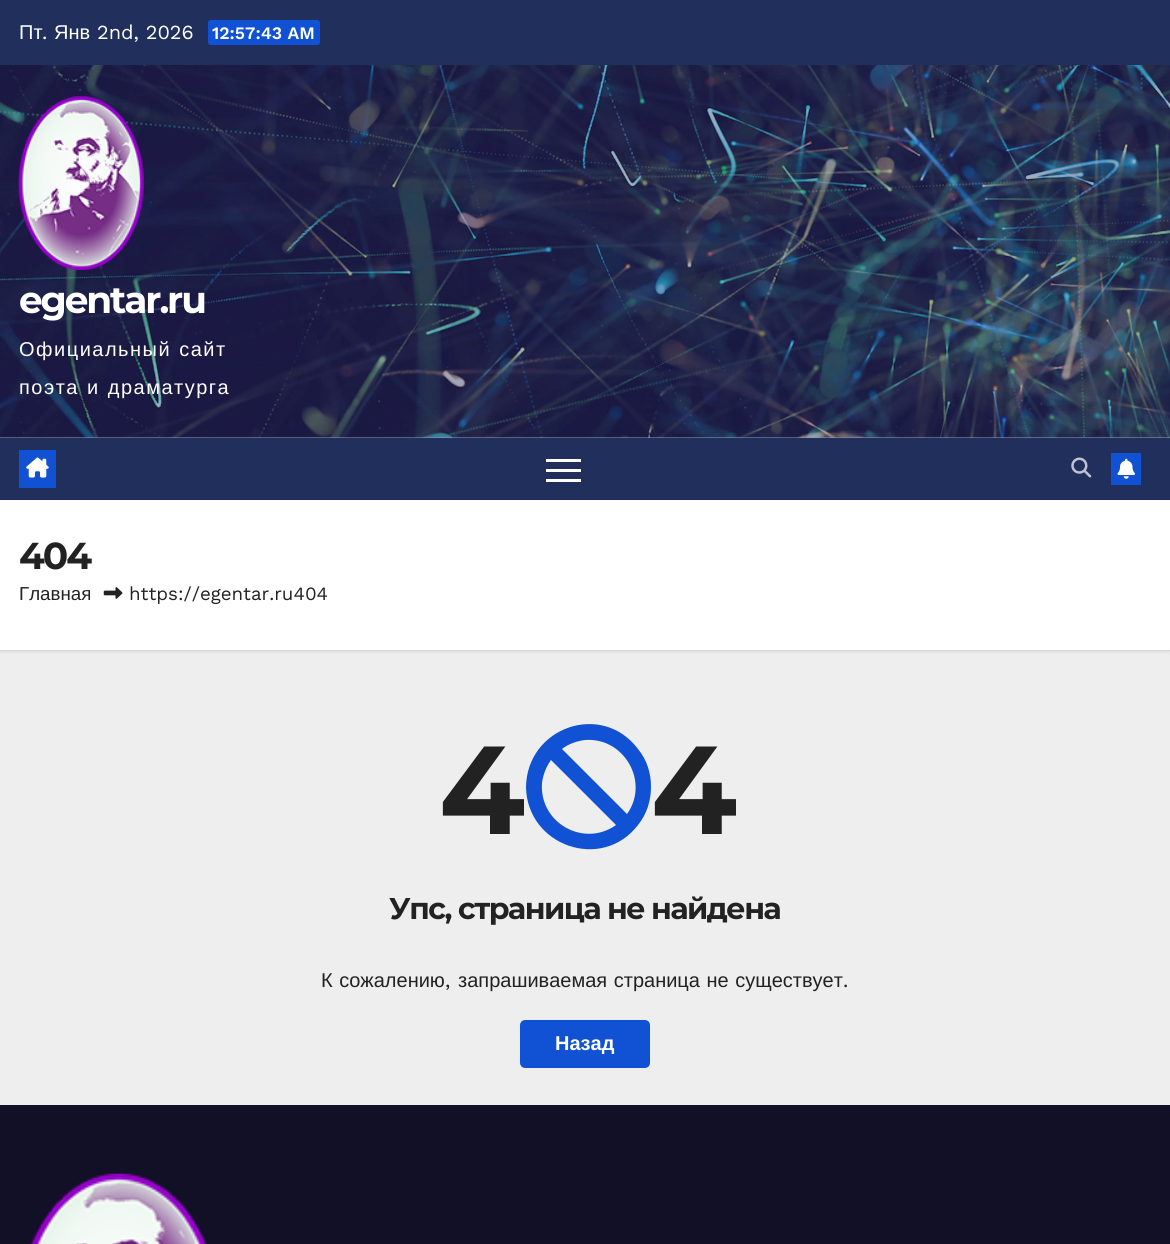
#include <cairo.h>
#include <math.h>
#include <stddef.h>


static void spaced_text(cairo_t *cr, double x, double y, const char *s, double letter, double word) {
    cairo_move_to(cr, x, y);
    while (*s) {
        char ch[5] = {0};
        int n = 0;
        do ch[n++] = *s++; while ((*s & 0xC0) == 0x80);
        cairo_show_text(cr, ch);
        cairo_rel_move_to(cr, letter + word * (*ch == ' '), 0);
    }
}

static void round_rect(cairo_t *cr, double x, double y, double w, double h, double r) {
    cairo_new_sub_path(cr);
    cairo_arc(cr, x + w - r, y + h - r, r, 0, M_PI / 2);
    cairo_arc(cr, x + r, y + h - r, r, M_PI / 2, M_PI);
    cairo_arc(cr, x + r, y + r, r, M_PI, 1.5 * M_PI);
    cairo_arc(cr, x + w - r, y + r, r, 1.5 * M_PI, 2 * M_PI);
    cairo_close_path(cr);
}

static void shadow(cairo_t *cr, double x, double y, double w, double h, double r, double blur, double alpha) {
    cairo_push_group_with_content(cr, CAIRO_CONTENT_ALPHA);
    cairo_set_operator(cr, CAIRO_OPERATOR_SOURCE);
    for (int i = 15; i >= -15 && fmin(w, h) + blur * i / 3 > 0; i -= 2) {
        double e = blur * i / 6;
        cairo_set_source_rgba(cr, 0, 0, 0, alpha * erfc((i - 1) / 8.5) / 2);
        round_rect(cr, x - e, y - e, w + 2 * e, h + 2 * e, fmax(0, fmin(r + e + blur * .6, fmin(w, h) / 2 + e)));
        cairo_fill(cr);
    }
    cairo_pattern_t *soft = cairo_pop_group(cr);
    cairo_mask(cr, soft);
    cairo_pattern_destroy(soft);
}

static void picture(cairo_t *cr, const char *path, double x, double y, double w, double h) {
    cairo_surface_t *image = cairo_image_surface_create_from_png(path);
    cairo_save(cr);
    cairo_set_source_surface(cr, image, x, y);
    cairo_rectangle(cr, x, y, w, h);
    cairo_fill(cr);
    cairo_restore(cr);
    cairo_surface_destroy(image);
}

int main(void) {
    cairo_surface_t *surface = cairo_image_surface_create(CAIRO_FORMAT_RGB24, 1170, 1244);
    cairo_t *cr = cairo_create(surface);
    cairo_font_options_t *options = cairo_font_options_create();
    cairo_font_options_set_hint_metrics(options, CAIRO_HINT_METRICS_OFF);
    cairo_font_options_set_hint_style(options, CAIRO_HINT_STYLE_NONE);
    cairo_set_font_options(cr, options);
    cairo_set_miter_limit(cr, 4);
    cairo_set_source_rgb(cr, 0.933, 0.933, 0.933);
    cairo_paint(cr);
    cairo_set_source_rgb(cr, 0.612, 0.635, 0.702);
    cairo_rectangle(cr, 0, 437, 1170, 1);
    cairo_fill(cr);
    cairo_set_source_rgb(cr, 0.125, 0.184, 0.357);
    cairo_rectangle(cr, 0, 0, 1170, 65);
    cairo_fill(cr);
    cairo_select_font_face(cr, "Liberation Sans", CAIRO_FONT_SLANT_NORMAL, CAIRO_FONT_WEIGHT_NORMAL);
    cairo_set_font_size(cr, 20);
    cairo_set_source_rgb(cr, 1, 1, 1);
    cairo_move_to(cr, 19, 39);
    cairo_show_text(cr, "Пт");
    cairo_select_font_face(cr, "Work Sans", CAIRO_FONT_SLANT_NORMAL, CAIRO_FONT_WEIGHT_NORMAL);
    cairo_move_to(cr, 42, 39);
    cairo_show_text(cr, ".");
    cairo_select_font_face(cr, "Liberation Sans", CAIRO_FONT_SLANT_NORMAL, CAIRO_FONT_WEIGHT_NORMAL);
    cairo_move_to(cr, 54, 39);
    cairo_show_text(cr, "Янв");
    cairo_select_font_face(cr, "Work Sans", CAIRO_FONT_SLANT_NORMAL, CAIRO_FONT_WEIGHT_NORMAL);
    cairo_move_to(cr, 97, 39);
    cairo_show_text(cr, "2nd, 2026");
    cairo_set_source_rgb(cr, 0.067, 0.318, 0.827);
    round_rect(cr, 208, 20, 112, 25, 2.5);
    cairo_fill(cr);
    cairo_select_font_face(cr, "Work Sans SemiBold", CAIRO_FONT_SLANT_NORMAL, CAIRO_FONT_WEIGHT_NORMAL);
    cairo_set_font_size(cr, 17.5);
    cairo_set_source_rgb(cr, 1, 1, 1);
    cairo_move_to(cr, 212, 39);
    cairo_show_text(cr, "12:57:43 AM");
    picture(cr, "img1.png", 0, 65, 1170, 373);
    picture(cr, "img2.png", 18, 96, 126, 174);
    cairo_select_font_face(cr, "Montserrat", CAIRO_FONT_SLANT_NORMAL, CAIRO_FONT_WEIGHT_BOLD);
    cairo_set_font_size(cr, 37.5);
    spaced_text(cr, 19, 313, "egentar.ru", -2.1, 0);
    cairo_select_font_face(cr, "Liberation Sans", CAIRO_FONT_SLANT_NORMAL, CAIRO_FONT_WEIGHT_NORMAL);
    cairo_set_font_size(cr, 20);
    spaced_text(cr, 19, 356, "Официальный сайт", 1.5, 1);
    spaced_text(cr, 19, 394, "поэта и драматурга", 1.5, 1);
    cairo_set_source_rgb(cr, 0, 0, 0);
    shadow(cr, 0, 501, 1170, 150, 0, 2, 0.15);
    cairo_set_source_rgb(cr, 0.125, 0.184, 0.357);
    cairo_rectangle(cr, 0, 438, 1170, 62);
    cairo_fill(cr);
    cairo_set_source_rgb(cr, 0.067, 0.318, 0.827);
    cairo_rectangle(cr, 19, 450, 37, 38);
    cairo_fill(cr);
    picture(cr, "img3.png", 26, 457, 23, 21);
    cairo_set_source_rgb(cr, 1, 1, 1);
    cairo_rectangle(cr, 546, 459, 35, 3);
    cairo_fill(cr);
    cairo_rectangle(cr, 546, 469, 35, 3);
    cairo_fill(cr);
    cairo_rectangle(cr, 546, 479, 35, 3);
    cairo_fill(cr);
    picture(cr, "img4.png", 1071, 457, 21, 21);
    cairo_set_source_rgb(cr, 0.067, 0.318, 0.827);
    cairo_rectangle(cr, 1111, 453, 30, 32);
    cairo_fill(cr);
    picture(cr, "img5.png", 1117, 458, 18, 21);
    cairo_set_source_rgb(cr, 1, 1, 1);
    cairo_rectangle(cr, 0, 500, 1170, 150);
    cairo_fill(cr);
    cairo_select_font_face(cr, "Montserrat", CAIRO_FONT_SLANT_NORMAL, CAIRO_FONT_WEIGHT_BOLD);
    cairo_set_font_size(cr, 37.5);
    cairo_set_source_rgb(cr, 0.133, 0.133, 0.133);
    spaced_text(cr, 19, 569, "404", -2, 0);
    cairo_select_font_face(cr, "Liberation Sans", CAIRO_FONT_SLANT_NORMAL, CAIRO_FONT_WEIGHT_NORMAL);
    cairo_set_font_size(cr, 18.75);
    cairo_move_to(cr, 19, 600);
    cairo_show_text(cr, "Главная");
    picture(cr, "img6.png", 103, 587, 20, 12);
    cairo_select_font_face(cr, "Work Sans", CAIRO_FONT_SLANT_NORMAL, CAIRO_FONT_WEIGHT_NORMAL);
    cairo_move_to(cr, 129, 600);
    cairo_show_text(cr, "https://egentar.ru404");
    cairo_select_font_face(cr, "Montserrat", CAIRO_FONT_SLANT_NORMAL, CAIRO_FONT_WEIGHT_BOLD);
    cairo_set_font_size(cr, 125);
    spaced_text(cr, 439, 834, "4", -6, 0);
    cairo_set_source_rgb(cr, 0.067, 0.318, 0.827);
    cairo_new_path(cr);
    cairo_move_to(cr, 616, 825);
    cairo_line_to(cr, 551, 760);
    cairo_curve_to(cr, 546, 767, 543, 775, 542, 783);
    cairo_curve_to(cr, 539, 823, 584, 848, 616, 825);
    cairo_close_path(cr);
    cairo_move_to(cr, 627, 814);
    cairo_curve_to(cr, 650, 782, 624, 737, 585, 740);
    cairo_curve_to(cr, 577, 741, 568, 744, 562, 749);
    cairo_close_path(cr);
    cairo_move_to(cr, 526, 787);
    cairo_curve_to(cr, 527, 727, 602, 701, 638, 749);
    cairo_curve_to(cr, 647, 760, 651, 773, 651, 787);
    cairo_curve_to(cr, 651, 800, 647, 814, 638, 825);
    cairo_curve_to(cr, 602, 872, 527, 846, 526, 787);
    cairo_close_path(cr);
    cairo_fill(cr);
    cairo_set_source_rgb(cr, 0.133, 0.133, 0.133);
    spaced_text(cr, 651, 834, "4", -6, 0);
    cairo_set_font_size(cr, 30);
    spaced_text(cr, 389, 919, "Упс, страница не найдена", -1.5, 0);
    cairo_select_font_face(cr, "Liberation Sans", CAIRO_FONT_SLANT_NORMAL, CAIRO_FONT_WEIGHT_NORMAL);
    cairo_set_font_size(cr, 20);
    spaced_text(cr, 321, 987, "К сожалению", 0, 1);
    cairo_select_font_face(cr, "Work Sans", CAIRO_FONT_SLANT_NORMAL, CAIRO_FONT_WEIGHT_NORMAL);
    cairo_move_to(cr, 445, 987);
    cairo_show_text(cr, ",");
    cairo_select_font_face(cr, "Liberation Sans", CAIRO_FONT_SLANT_NORMAL, CAIRO_FONT_WEIGHT_NORMAL);
    spaced_text(cr, 458, 987, "запрашиваемая страница не существует", 0, 1);
    cairo_select_font_face(cr, "Work Sans", CAIRO_FONT_SLANT_NORMAL, CAIRO_FONT_WEIGHT_NORMAL);
    cairo_move_to(cr, 843, 987);
    cairo_show_text(cr, ".");
    cairo_set_source_rgb(cr, 0.067, 0.318, 0.827);
    round_rect(cr, 521.5, 1021.5, 127, 45, 3.5);
    cairo_fill_preserve(cr);
    cairo_set_line_width(cr, 3);
    cairo_stroke(cr);
    cairo_select_font_face(cr, "Liberation Sans", CAIRO_FONT_SLANT_NORMAL, CAIRO_FONT_WEIGHT_BOLD);
    cairo_set_source_rgb(cr, 1, 1, 1);
    cairo_move_to(cr, 555, 1050);
    cairo_show_text(cr, "Назад");
    cairo_set_source_rgb(cr, 0.071, 0.063, 0.149);
    cairo_rectangle(cr, 0, 1105, 1170, 139);
    cairo_fill(cr);
    picture(cr, "img7.png", 30, 1173, 178, 71);
    cairo_surface_write_to_png(surface, "page.png");
    cairo_font_options_destroy(options);
    cairo_destroy(cr);
    cairo_surface_destroy(surface);
    return 0;
}
